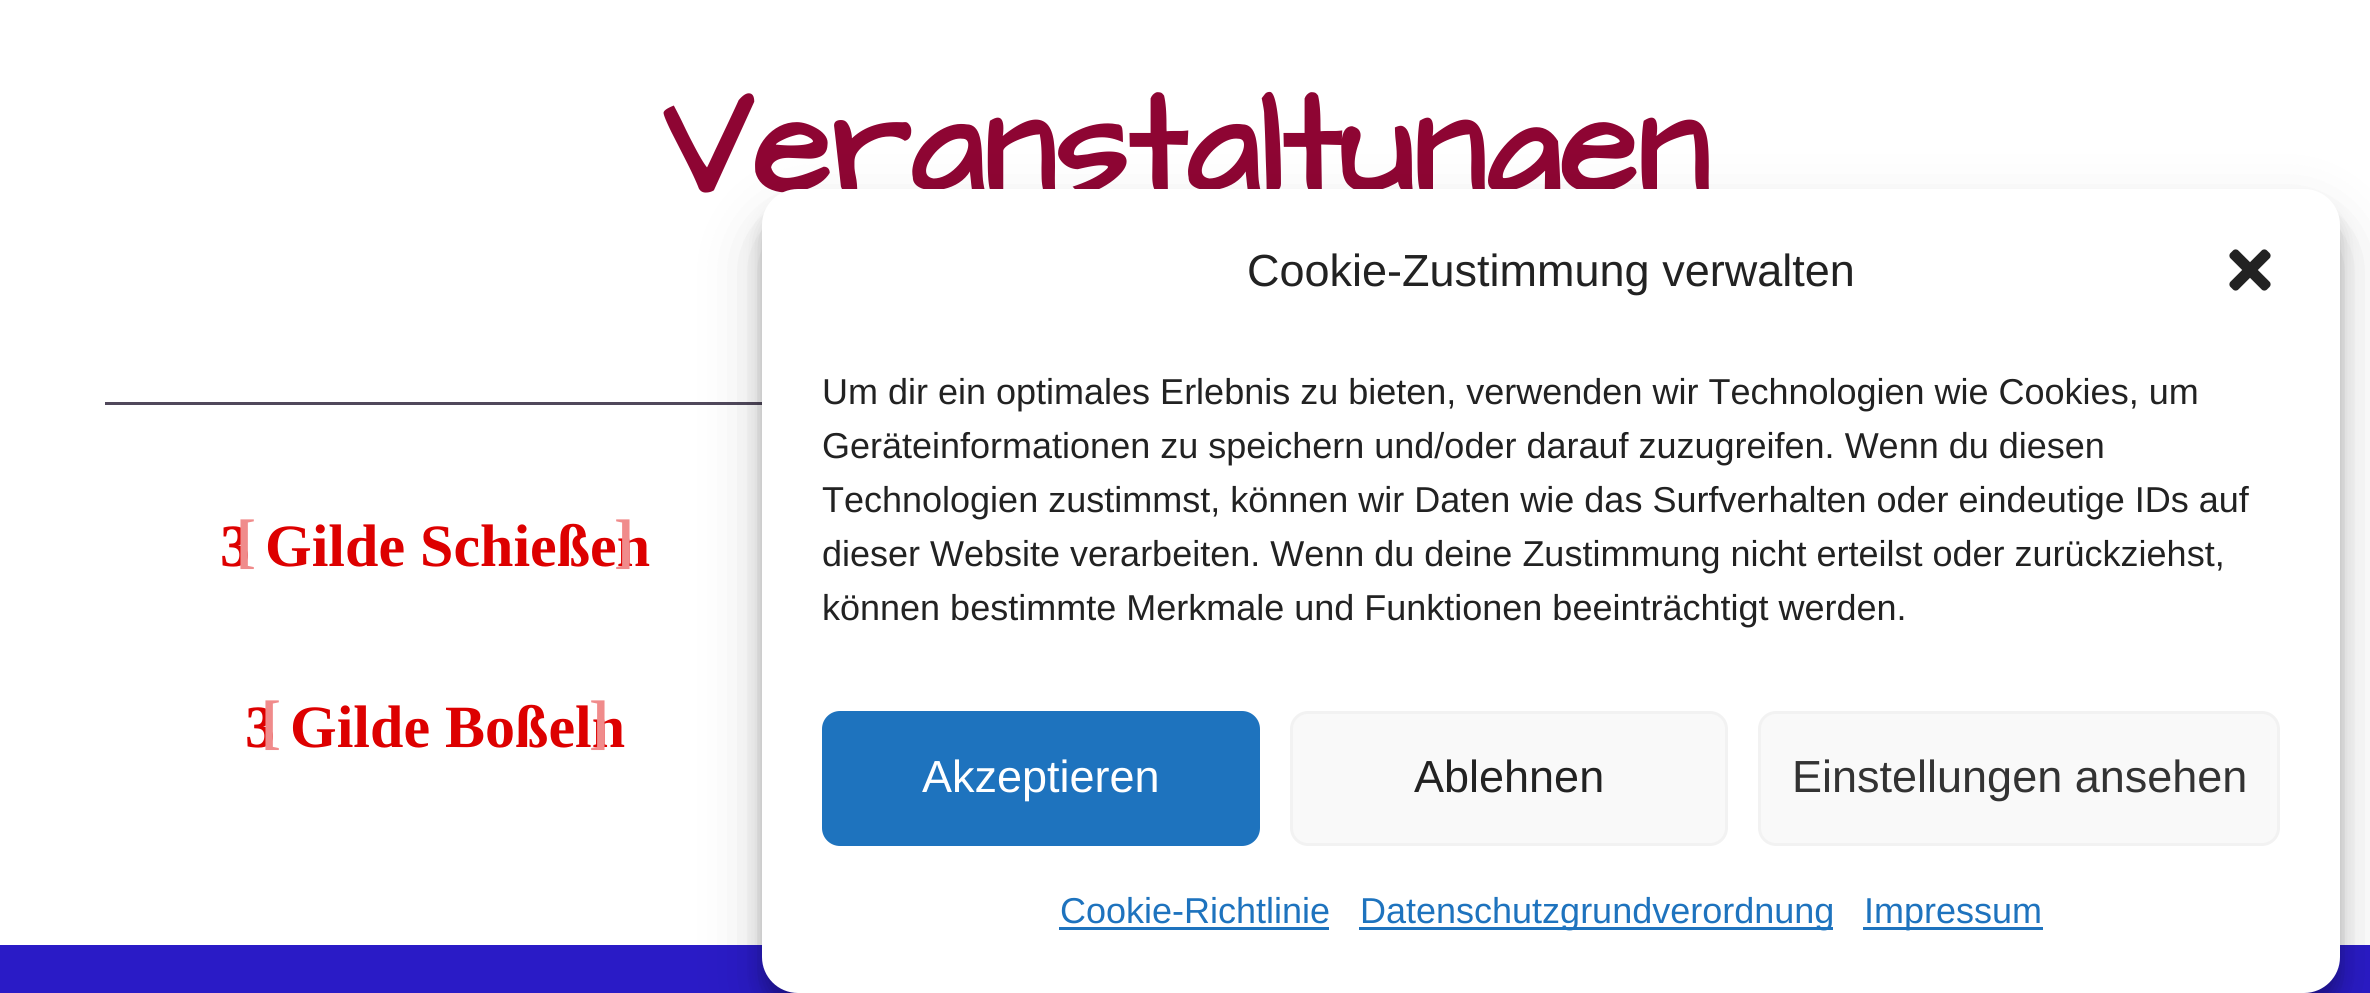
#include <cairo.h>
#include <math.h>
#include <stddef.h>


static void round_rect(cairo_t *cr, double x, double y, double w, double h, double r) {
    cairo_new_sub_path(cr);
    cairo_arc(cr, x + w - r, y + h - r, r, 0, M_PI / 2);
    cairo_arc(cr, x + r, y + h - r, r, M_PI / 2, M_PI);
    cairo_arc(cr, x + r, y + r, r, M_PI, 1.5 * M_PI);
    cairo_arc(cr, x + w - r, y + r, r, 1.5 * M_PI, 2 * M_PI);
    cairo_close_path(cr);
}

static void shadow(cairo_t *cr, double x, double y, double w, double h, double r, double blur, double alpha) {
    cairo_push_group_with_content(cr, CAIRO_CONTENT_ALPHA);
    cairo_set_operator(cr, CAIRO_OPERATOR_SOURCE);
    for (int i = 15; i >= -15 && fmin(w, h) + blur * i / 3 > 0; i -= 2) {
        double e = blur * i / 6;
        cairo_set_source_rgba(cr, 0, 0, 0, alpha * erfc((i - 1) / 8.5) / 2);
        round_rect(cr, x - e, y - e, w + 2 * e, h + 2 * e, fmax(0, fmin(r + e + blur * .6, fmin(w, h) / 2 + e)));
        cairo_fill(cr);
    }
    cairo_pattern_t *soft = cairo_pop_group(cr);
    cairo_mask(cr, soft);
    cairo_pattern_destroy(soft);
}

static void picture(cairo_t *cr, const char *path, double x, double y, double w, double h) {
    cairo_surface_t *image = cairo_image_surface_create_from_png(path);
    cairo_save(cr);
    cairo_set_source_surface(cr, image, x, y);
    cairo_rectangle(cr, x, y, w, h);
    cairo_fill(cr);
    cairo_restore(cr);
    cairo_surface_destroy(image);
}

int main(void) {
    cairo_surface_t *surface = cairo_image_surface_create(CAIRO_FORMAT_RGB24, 2370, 993);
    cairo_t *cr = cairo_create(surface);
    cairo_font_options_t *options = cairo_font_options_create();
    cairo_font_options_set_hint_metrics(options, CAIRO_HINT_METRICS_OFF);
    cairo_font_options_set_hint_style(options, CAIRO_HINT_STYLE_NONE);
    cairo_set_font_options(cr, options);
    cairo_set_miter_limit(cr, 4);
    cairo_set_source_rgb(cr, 1, 1, 1);
    cairo_paint(cr);
    cairo_select_font_face(cr, "Architects Daughter", CAIRO_FONT_SLANT_NORMAL, CAIRO_FONT_WEIGHT_BOLD);
    cairo_set_font_size(cr, 144);
    cairo_set_source_rgb(cr, 0.557, 0.02, 0.2);
    cairo_move_to(cr, 662, 192);
    cairo_show_text(cr, "Veranstaltungen");
    cairo_set_source_rgb(cr, 0.314, 0.282, 0.357);
    cairo_rectangle(cr, 105, 402, 657, 3);
    cairo_fill(cr);
    cairo_select_font_face(cr, "Liberation Serif", CAIRO_FONT_SLANT_NORMAL, CAIRO_FONT_WEIGHT_BOLD);
    cairo_set_font_size(cr, 60);
    cairo_set_source_rgb(cr, 0.867, 0, 0);
    cairo_move_to(cr, 220, 566);
    cairo_show_text(cr, "3 Gilde Schießen");
    cairo_set_source_rgb(cr, 0.941, 0.545, 0.545);
    cairo_move_to(cr, 236, 561);
    cairo_show_text(cr, "[");
    cairo_move_to(cr, 614, 561);
    cairo_show_text(cr, "]");
    cairo_set_source_rgb(cr, 0.867, 0, 0);
    cairo_move_to(cr, 245, 747);
    cairo_show_text(cr, "3 Gilde Boßeln");
    cairo_set_source_rgb(cr, 0.941, 0.545, 0.545);
    cairo_move_to(cr, 261, 742);
    cairo_show_text(cr, "[");
    cairo_move_to(cr, 589, 742);
    cairo_show_text(cr, "]");
    cairo_set_source_rgb(cr, 0.165, 0.106, 0.776);
    cairo_rectangle(cr, 0, 945, 2370, 48);
    cairo_fill(cr);
    cairo_set_source_rgb(cr, 0, 0, 0);
    shadow(cr, 762, 207, 1578, 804, 36, 9, 0.23);
    shadow(cr, 762, 219, 1578, 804, 36, 30, 0.19);
    cairo_set_source_rgb(cr, 1, 1, 1);
    round_rect(cr, 762, 189, 1578, 804, 36);
    cairo_fill(cr);
    cairo_select_font_face(cr, "Liberation Sans", CAIRO_FONT_SLANT_NORMAL, CAIRO_FONT_WEIGHT_NORMAL);
    cairo_set_font_size(cr, 45);
    cairo_set_source_rgb(cr, 0.133, 0.133, 0.133);
    cairo_move_to(cr, 1247, 286);
    cairo_show_text(cr, "Cookie-Zustimmung verwalten");
    picture(cr, "img1.png", 2229, 249, 42, 42);
    cairo_set_font_size(cr, 36);
    cairo_move_to(cr, 822, 404);
    cairo_show_text(cr, "Um dir ein optimales Erlebnis zu bieten, verwenden wir Technologien wie Cookies, um");
    cairo_move_to(cr, 822, 458);
    cairo_show_text(cr, "Geräteinformationen zu speichern und/oder darauf zuzugreifen. Wenn du diesen");
    cairo_move_to(cr, 822, 512);
    cairo_show_text(cr, "Technologien zustimmst, können wir Daten wie das Surfverhalten oder eindeutige IDs auf");
    cairo_move_to(cr, 822, 566);
    cairo_show_text(cr, "dieser Website verarbeiten. Wenn du deine Zustimmung nicht erteilst oder zurückziehst,");
    cairo_move_to(cr, 822, 620);
    cairo_show_text(cr, "können bestimmte Merkmale und Funktionen beeinträchtigt werden.");
    cairo_set_source_rgb(cr, 0.118, 0.451, 0.745);
    round_rect(cr, 823.5, 712.5, 435, 132, 16.5);
    cairo_fill_preserve(cr);
    cairo_set_line_width(cr, 3);
    cairo_stroke(cr);
    cairo_set_font_size(cr, 45);
    cairo_set_source_rgb(cr, 1, 1, 1);
    cairo_move_to(cr, 922, 792);
    cairo_show_text(cr, "Akzeptieren");
    cairo_set_source_rgb(cr, 0.976, 0.976, 0.976);
    round_rect(cr, 1291.5, 712.5, 435, 132, 16.5);
    cairo_fill_preserve(cr);
    cairo_set_source_rgb(cr, 0.949, 0.949, 0.949);
    cairo_stroke(cr);
    cairo_set_source_rgb(cr, 0.133, 0.133, 0.133);
    cairo_move_to(cr, 1414, 792);
    cairo_show_text(cr, "Ablehnen");
    cairo_set_source_rgb(cr, 0.976, 0.976, 0.976);
    round_rect(cr, 1759.5, 712.5, 519, 132, 16.5);
    cairo_fill_preserve(cr);
    cairo_set_source_rgb(cr, 0.949, 0.949, 0.949);
    cairo_stroke(cr);
    cairo_set_source_rgb(cr, 0.2, 0.2, 0.2);
    cairo_move_to(cr, 1792, 792);
    cairo_show_text(cr, "Einstellungen ansehen");
    cairo_set_font_size(cr, 36);
    cairo_set_source_rgb(cr, 0.118, 0.451, 0.745);
    cairo_move_to(cr, 1060, 923);
    cairo_show_text(cr, "Cookie-Richtlinie");
    cairo_rectangle(cr, 1059, 927, 270, 3);
    cairo_fill(cr);
    cairo_rectangle(cr, 1359, 927, 474, 3);
    cairo_fill(cr);
    cairo_move_to(cr, 1360, 923);
    cairo_show_text(cr, "Datenschutzgrundverordnung");
    cairo_rectangle(cr, 1863, 927, 180, 3);
    cairo_fill(cr);
    cairo_move_to(cr, 1864, 923);
    cairo_show_text(cr, "Impressum");
    cairo_surface_write_to_png(surface, "page.png");
    cairo_font_options_destroy(options);
    cairo_destroy(cr);
    cairo_surface_destroy(surface);
    return 0;
}
